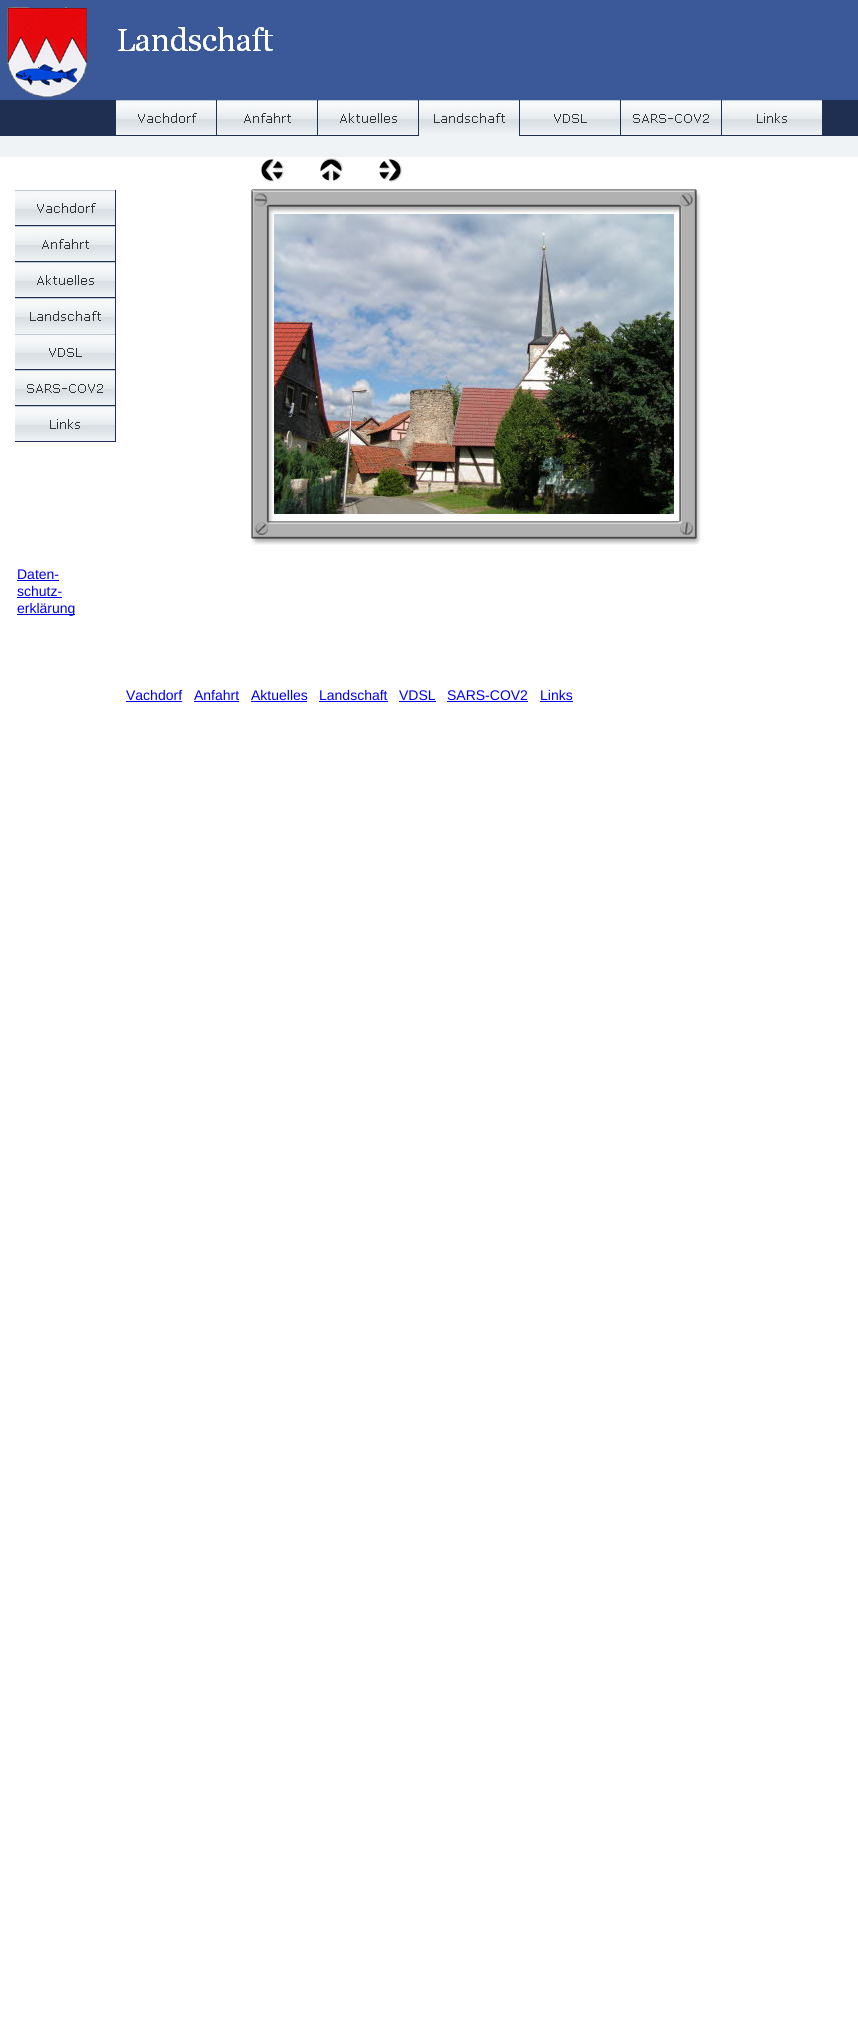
#include <cairo.h>
#include <math.h>
#include <stddef.h>


static void picture(cairo_t *cr, const char *path, double x, double y, double w, double h) {
    cairo_surface_t *image = cairo_image_surface_create_from_png(path);
    cairo_save(cr);
    cairo_set_source_surface(cr, image, x, y);
    cairo_rectangle(cr, x, y, w, h);
    cairo_fill(cr);
    cairo_restore(cr);
    cairo_surface_destroy(image);
}

int main(void) {
    cairo_surface_t *surface = cairo_image_surface_create(CAIRO_FORMAT_RGB24, 858, 2039);
    cairo_t *cr = cairo_create(surface);
    cairo_font_options_t *options = cairo_font_options_create();
    cairo_font_options_set_hint_metrics(options, CAIRO_HINT_METRICS_OFF);
    cairo_font_options_set_hint_style(options, CAIRO_HINT_STYLE_NONE);
    cairo_set_font_options(cr, options);
    cairo_set_miter_limit(cr, 4);
    cairo_set_source_rgb(cr, 1, 1, 1);
    cairo_paint(cr);
    picture(cr, "img1.png", 0, 0, 858, 157);
    picture(cr, "img2.png", 7, 7, 80, 90);
    picture(cr, "img3.png", 15, 190, 101, 36);
    picture(cr, "img4.png", 15, 226, 101, 36);
    picture(cr, "img5.png", 15, 262, 101, 36);
    picture(cr, "img6.png", 15, 298, 101, 36);
    picture(cr, "img7.png", 15, 334, 101, 36);
    picture(cr, "img8.png", 15, 370, 101, 36);
    picture(cr, "img9.png", 15, 406, 101, 36);
    cairo_select_font_face(cr, "Liberation Sans", CAIRO_FONT_SLANT_NORMAL, CAIRO_FONT_WEIGHT_NORMAL);
    cairo_set_font_size(cr, 14);
    cairo_set_source_rgb(cr, 0, 0, 0.933);
    cairo_move_to(cr, 17, 579);
    cairo_show_text(cr, "Daten-");
    cairo_rectangle(cr, 17, 580, 42, 1);
    cairo_fill(cr);
    cairo_move_to(cr, 17, 596);
    cairo_show_text(cr, "schutz-");
    cairo_rectangle(cr, 17, 597, 45, 1);
    cairo_fill(cr);
    cairo_rectangle(cr, 17, 614, 58, 1);
    cairo_fill(cr);
    cairo_move_to(cr, 17, 613);
    cairo_show_text(cr, "erklärung");
    picture(cr, "img10.png", 118, 27, 155, 24);
    picture(cr, "img11.png", 116, 100, 101, 35);
    picture(cr, "img12.png", 217, 100, 101, 35);
    picture(cr, "img13.png", 318, 100, 101, 35);
    picture(cr, "img6.png", 419, 100, 101, 36);
    picture(cr, "img14.png", 520, 100, 101, 35);
    picture(cr, "img15.png", 621, 100, 101, 35);
    picture(cr, "img16.png", 722, 100, 101, 35);
    picture(cr, "img17.png", 261, 159, 23, 23);
    picture(cr, "img18.png", 320, 158, 23, 23);
    picture(cr, "img19.png", 379, 159, 23, 23);
    picture(cr, "img20.png", 251, 189, 23, 25);
    picture(cr, "img21.png", 274, 189, 400, 24);
    picture(cr, "img22.png", 674, 189, 27, 25);
    picture(cr, "img23.png", 251, 214, 22, 300);
    picture(cr, "img24.png", 274, 214, 400, 300);
    picture(cr, "img23.png", 679, 214, 22, 300);
    picture(cr, "img25.png", 251, 514, 23, 31);
    picture(cr, "img21.png", 274, 521, 400, 24);
    picture(cr, "img26.png", 674, 514, 27, 31);
    cairo_move_to(cr, 126, 700);
    cairo_show_text(cr, "Vachdorf");
    cairo_rectangle(cr, 126, 701, 56, 1);
    cairo_fill(cr);
    cairo_move_to(cr, 194, 700);
    cairo_show_text(cr, "Anfahrt");
    cairo_rectangle(cr, 194, 701, 45, 1);
    cairo_fill(cr);
    cairo_move_to(cr, 251, 700);
    cairo_show_text(cr, "Aktuelles");
    cairo_rectangle(cr, 251, 701, 56, 1);
    cairo_fill(cr);
    cairo_move_to(cr, 319, 700);
    cairo_show_text(cr, "Landschaft");
    cairo_rectangle(cr, 319, 701, 69, 1);
    cairo_fill(cr);
    cairo_move_to(cr, 399, 700);
    cairo_show_text(cr, "VDSL");
    cairo_rectangle(cr, 399, 701, 37, 1);
    cairo_fill(cr);
    cairo_move_to(cr, 447, 700);
    cairo_show_text(cr, "SARS-COV2");
    cairo_rectangle(cr, 447, 701, 81, 1);
    cairo_fill(cr);
    cairo_move_to(cr, 540, 700);
    cairo_show_text(cr, "Links");
    cairo_rectangle(cr, 540, 701, 33, 1);
    cairo_fill(cr);
    cairo_surface_write_to_png(surface, "page.png");
    cairo_font_options_destroy(options);
    cairo_destroy(cr);
    cairo_surface_destroy(surface);
    return 0;
}
